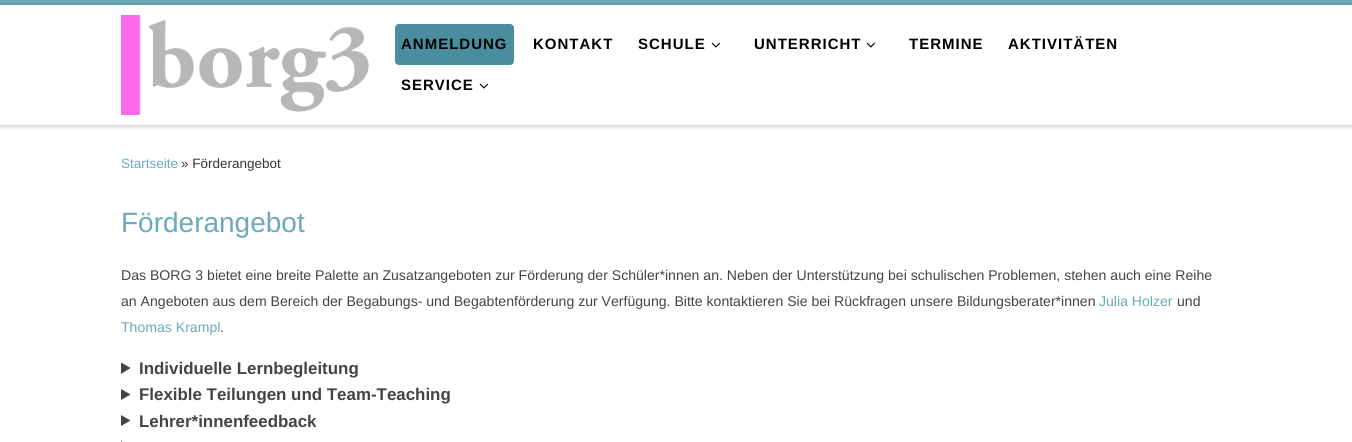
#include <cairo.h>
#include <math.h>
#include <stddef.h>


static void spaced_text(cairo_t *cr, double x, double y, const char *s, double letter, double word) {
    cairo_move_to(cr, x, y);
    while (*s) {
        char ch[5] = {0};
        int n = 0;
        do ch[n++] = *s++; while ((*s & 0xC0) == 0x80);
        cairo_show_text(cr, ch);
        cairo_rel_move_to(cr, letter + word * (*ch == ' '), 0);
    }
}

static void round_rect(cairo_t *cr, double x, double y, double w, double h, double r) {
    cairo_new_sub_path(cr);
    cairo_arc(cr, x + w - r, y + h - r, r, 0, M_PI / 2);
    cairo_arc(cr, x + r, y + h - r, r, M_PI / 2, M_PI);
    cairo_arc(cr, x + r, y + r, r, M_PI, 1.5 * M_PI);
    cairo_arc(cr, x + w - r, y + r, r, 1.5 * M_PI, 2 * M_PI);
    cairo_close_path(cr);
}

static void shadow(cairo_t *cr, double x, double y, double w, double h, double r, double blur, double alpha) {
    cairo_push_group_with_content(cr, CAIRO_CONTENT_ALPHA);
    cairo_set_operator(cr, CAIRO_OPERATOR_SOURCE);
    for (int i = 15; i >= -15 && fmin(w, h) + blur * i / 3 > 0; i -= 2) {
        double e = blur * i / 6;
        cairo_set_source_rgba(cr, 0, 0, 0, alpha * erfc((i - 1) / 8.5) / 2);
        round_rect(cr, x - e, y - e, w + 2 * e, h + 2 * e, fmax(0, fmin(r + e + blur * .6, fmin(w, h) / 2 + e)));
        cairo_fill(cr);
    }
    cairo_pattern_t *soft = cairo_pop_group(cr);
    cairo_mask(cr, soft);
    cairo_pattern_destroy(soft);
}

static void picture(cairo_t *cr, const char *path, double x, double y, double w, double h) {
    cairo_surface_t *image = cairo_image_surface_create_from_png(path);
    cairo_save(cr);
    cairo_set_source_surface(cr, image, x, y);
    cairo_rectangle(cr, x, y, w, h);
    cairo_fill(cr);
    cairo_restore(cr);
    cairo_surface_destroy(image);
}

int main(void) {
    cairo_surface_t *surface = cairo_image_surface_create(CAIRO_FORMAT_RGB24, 1352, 442);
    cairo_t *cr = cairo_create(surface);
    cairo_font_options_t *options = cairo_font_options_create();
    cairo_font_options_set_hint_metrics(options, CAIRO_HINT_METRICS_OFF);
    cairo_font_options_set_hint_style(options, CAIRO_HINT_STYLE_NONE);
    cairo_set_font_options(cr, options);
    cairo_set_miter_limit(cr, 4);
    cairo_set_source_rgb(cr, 1, 1, 1);
    cairo_paint(cr);
    cairo_save(cr);
    cairo_rectangle(cr, 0, 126, 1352, 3);
    cairo_clip(cr);
    cairo_set_source_rgb(cr, 0.4, 0.4, 0.4);
    shadow(cr, 0, 2, 1352, 126, 0, 1, 0.08);
    cairo_restore(cr);
    cairo_set_source_rgb(cr, 0.42, 0.667, 0.729);
    cairo_rectangle(cr, 0, 0, 1352, 5);
    cairo_fill(cr);
    cairo_set_source_rgb(cr, 0.922, 0.922, 0.922);
    cairo_rectangle(cr, 0, 125, 1352, 1);
    cairo_fill(cr);
    cairo_save(cr);
    cairo_set_fill_rule(cr, CAIRO_FILL_RULE_EVEN_ODD);
    cairo_new_path(cr);
    cairo_move_to(cr, 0, 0);
    cairo_line_to(cr, 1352, 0);
    cairo_line_to(cr, 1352, 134);
    cairo_line_to(cr, 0, 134);
    cairo_close_path(cr);
    cairo_move_to(cr, 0, 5);
    cairo_line_to(cr, 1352, 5);
    cairo_line_to(cr, 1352, 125);
    cairo_line_to(cr, 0, 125);
    cairo_close_path(cr);
    cairo_clip(cr);
    cairo_set_source_rgb(cr, 0, 0, 0);
    shadow(cr, 0, 5, 1352, 120, 0, 2.5, 0.2);
    cairo_restore(cr);
    picture(cr, "img1.png", 121, 15, 248, 100);
    cairo_set_source_rgb(cr, 0.29, 0.553, 0.62);
    round_rect(cr, 395, 24, 119, 41, 4);
    cairo_fill(cr);
    cairo_select_font_face(cr, "Liberation Sans", CAIRO_FONT_SLANT_NORMAL, CAIRO_FONT_WEIGHT_BOLD);
    cairo_set_font_size(cr, 15);
    cairo_set_source_rgb(cr, 0, 0, 0);
    spaced_text(cr, 401, 49, "ANMELDUNG", 1, 0);
    spaced_text(cr, 533, 49, "KONTAKT", 1, 0);
    spaced_text(cr, 638, 49, "SCHULE", 1, 0);
    picture(cr, "img2.png", 711, 42, 9, 6);
    spaced_text(cr, 754, 49, "UNTERRICHT", 1, 0);
    picture(cr, "img2.png", 866, 42, 9, 6);
    spaced_text(cr, 909, 49, "TERMINE", 1, 0);
    spaced_text(cr, 1008, 49, "AKTIVITÄTEN", 1, 0);
    spaced_text(cr, 401, 90, "SERVICE", 1, 0);
    picture(cr, "img2.png", 479, 83, 9, 6);
    cairo_select_font_face(cr, "Liberation Sans", CAIRO_FONT_SLANT_NORMAL, CAIRO_FONT_WEIGHT_NORMAL);
    cairo_set_font_size(cr, 13.5);
    cairo_set_source_rgb(cr, 0.42, 0.667, 0.729);
    cairo_move_to(cr, 121, 168);
    cairo_show_text(cr, "Startseite");
    cairo_set_source_rgb(cr, 0.2, 0.2, 0.2);
    cairo_move_to(cr, 181, 168);
    cairo_show_text(cr, "» Förderangebot");
    cairo_set_font_size(cr, 28);
    cairo_set_source_rgb(cr, 0.42, 0.667, 0.729);
    cairo_move_to(cr, 121, 232);
    cairo_show_text(cr, "Förderangebot");
    cairo_set_font_size(cr, 14.08);
    cairo_set_source_rgb(cr, 0.267, 0.267, 0.267);
    cairo_move_to(cr, 121, 280);
    cairo_show_text(cr, "Das BORG 3 bietet eine breite Palette an Zusatzangeboten zur Förderung der Schüler*innen an. Neben der Unterstützung bei schulischen Problemen, stehen auch eine Reihe");
    cairo_move_to(cr, 121, 306);
    cairo_show_text(cr, "an Angeboten aus dem Bereich der Begabungs- und Begabtenförderung zur Verfügung. Bitte kontaktieren Sie bei Rückfragen unsere Bildungsberater*innen");
    cairo_set_source_rgb(cr, 0.42, 0.667, 0.729);
    cairo_move_to(cr, 1099, 306);
    cairo_show_text(cr, "Julia Holzer");
    cairo_set_source_rgb(cr, 0.267, 0.267, 0.267);
    cairo_move_to(cr, 1177, 306);
    cairo_show_text(cr, "und");
    cairo_set_source_rgb(cr, 0.42, 0.667, 0.729);
    cairo_move_to(cr, 121, 332);
    cairo_show_text(cr, "Thomas Krampl");
    cairo_set_source_rgb(cr, 0.267, 0.267, 0.267);
    cairo_move_to(cr, 220, 332);
    cairo_show_text(cr, ".");
    cairo_new_path(cr);
    cairo_move_to(cr, 121, 362.5);
    cairo_line_to(cr, 130.5, 368);
    cairo_line_to(cr, 121, 374);
    cairo_close_path(cr);
    cairo_fill(cr);
    cairo_select_font_face(cr, "Liberation Sans", CAIRO_FONT_SLANT_NORMAL, CAIRO_FONT_WEIGHT_BOLD);
    cairo_set_font_size(cr, 16.9);
    cairo_move_to(cr, 139, 374);
    cairo_show_text(cr, "Individuelle Lernbegleitung");
    cairo_new_path(cr);
    cairo_move_to(cr, 121, 389);
    cairo_line_to(cr, 130.5, 394.5);
    cairo_line_to(cr, 121, 400);
    cairo_close_path(cr);
    cairo_fill(cr);
    cairo_move_to(cr, 139, 400);
    cairo_show_text(cr, "Flexible Teilungen und Team-Teaching");
    cairo_new_path(cr);
    cairo_move_to(cr, 121, 415);
    cairo_line_to(cr, 130.5, 420.5);
    cairo_line_to(cr, 121, 426);
    cairo_close_path(cr);
    cairo_fill(cr);
    cairo_move_to(cr, 139, 427);
    cairo_show_text(cr, "Lehrer*innenfeedback");
    cairo_new_path(cr);
    cairo_move_to(cr, 121, 441);
    cairo_line_to(cr, 130.5, 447);
    cairo_line_to(cr, 121, 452.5);
    cairo_close_path(cr);
    cairo_fill(cr);
    cairo_surface_write_to_png(surface, "page.png");
    cairo_font_options_destroy(options);
    cairo_destroy(cr);
    cairo_surface_destroy(surface);
    return 0;
}
